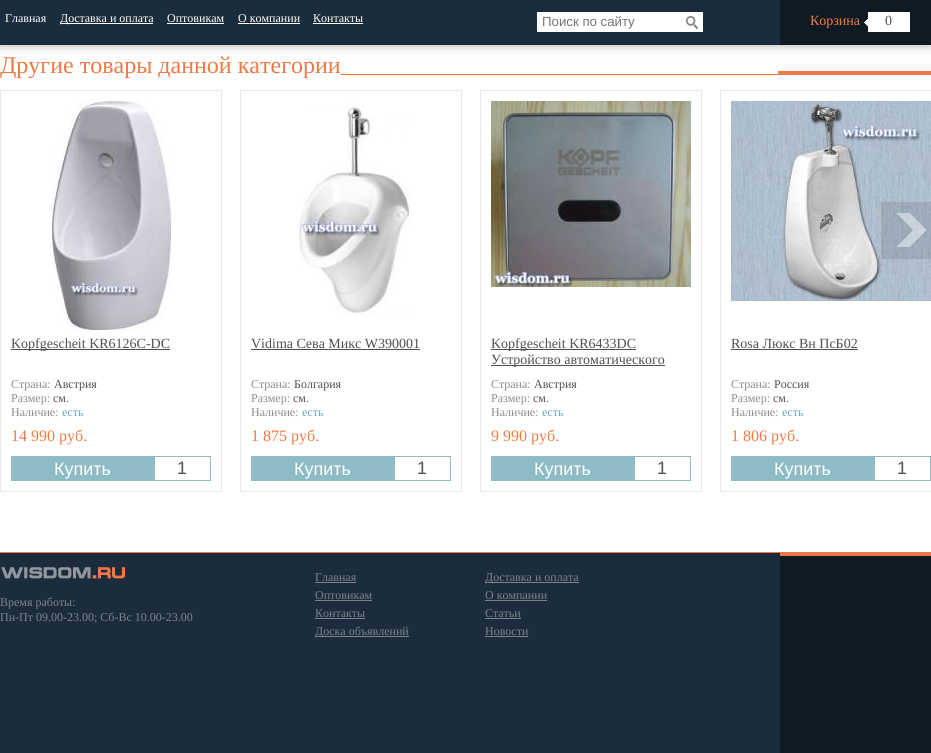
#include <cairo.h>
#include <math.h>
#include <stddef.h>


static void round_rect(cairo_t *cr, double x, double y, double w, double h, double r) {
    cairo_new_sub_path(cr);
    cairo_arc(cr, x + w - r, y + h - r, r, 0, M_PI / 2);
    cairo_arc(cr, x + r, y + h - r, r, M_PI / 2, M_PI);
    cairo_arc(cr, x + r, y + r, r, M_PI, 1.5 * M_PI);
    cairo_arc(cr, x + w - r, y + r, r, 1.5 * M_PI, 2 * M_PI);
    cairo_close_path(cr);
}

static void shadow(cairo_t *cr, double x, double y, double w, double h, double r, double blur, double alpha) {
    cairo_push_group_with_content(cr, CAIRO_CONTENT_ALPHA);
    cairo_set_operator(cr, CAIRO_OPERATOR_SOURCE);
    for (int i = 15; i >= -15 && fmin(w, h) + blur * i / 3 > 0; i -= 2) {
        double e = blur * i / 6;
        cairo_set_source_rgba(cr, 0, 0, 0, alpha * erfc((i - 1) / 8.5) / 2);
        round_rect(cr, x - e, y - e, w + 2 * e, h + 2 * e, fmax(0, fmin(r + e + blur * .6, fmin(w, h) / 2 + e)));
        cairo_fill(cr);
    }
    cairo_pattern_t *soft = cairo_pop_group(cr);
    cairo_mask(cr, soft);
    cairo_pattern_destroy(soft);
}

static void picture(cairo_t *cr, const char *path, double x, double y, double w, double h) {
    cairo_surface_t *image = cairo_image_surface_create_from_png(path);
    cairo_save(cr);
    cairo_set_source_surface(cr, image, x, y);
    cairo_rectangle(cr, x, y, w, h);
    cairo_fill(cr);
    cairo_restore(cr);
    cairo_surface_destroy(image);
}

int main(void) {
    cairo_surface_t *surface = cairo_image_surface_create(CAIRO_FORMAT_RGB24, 931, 753);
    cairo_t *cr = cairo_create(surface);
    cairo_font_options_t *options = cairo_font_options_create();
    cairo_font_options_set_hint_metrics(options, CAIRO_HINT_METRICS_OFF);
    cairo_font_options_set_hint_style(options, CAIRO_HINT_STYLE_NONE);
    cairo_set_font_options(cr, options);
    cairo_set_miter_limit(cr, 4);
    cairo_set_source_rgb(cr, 1, 1, 1);
    cairo_paint(cr);
    cairo_set_source_rgb(cr, 0.671, 0.659, 0.659);
    shadow(cr, 0, 0, 931, 45, 0, 5, 1);
    cairo_set_source_rgb(cr, 0.106, 0.176, 0.239);
    cairo_rectangle(cr, 0, 0, 780, 45);
    cairo_fill(cr);
    cairo_select_font_face(cr, "Liberation Serif", CAIRO_FONT_SLANT_NORMAL, CAIRO_FONT_WEIGHT_NORMAL);
    cairo_set_font_size(cr, 12);
    cairo_set_source_rgb(cr, 1, 1, 1);
    cairo_move_to(cr, 5, 22);
    cairo_show_text(cr, "Главная");
    cairo_rectangle(cr, 60, 23, 93, 1);
    cairo_fill(cr);
    cairo_move_to(cr, 60, 22);
    cairo_show_text(cr, "Доставка и оплата");
    cairo_move_to(cr, 167, 22);
    cairo_show_text(cr, "Оптовикам");
    cairo_rectangle(cr, 167, 23, 57, 1);
    cairo_fill(cr);
    cairo_move_to(cr, 238, 22);
    cairo_show_text(cr, "О компании");
    cairo_rectangle(cr, 238, 23, 62, 1);
    cairo_fill(cr);
    cairo_move_to(cr, 313, 22);
    cairo_show_text(cr, "Контакты");
    cairo_rectangle(cr, 313, 23, 50, 1);
    cairo_fill(cr);
    cairo_rectangle(cr, 537, 12, 166, 20);
    cairo_fill(cr);
    cairo_select_font_face(cr, "Liberation Sans", CAIRO_FONT_SLANT_NORMAL, CAIRO_FONT_WEIGHT_NORMAL);
    cairo_set_font_size(cr, 13.25);
    cairo_set_source_rgb(cr, 0.459, 0.459, 0.459);
    cairo_move_to(cr, 542, 26);
    cairo_show_text(cr, "Поиск по сайту");
    picture(cr, "img1.png", 686, 16, 12, 13);
    cairo_set_source_rgb(cr, 0.063, 0.102, 0.137);
    cairo_rectangle(cr, 780, 0, 151, 45);
    cairo_fill(cr);
    cairo_select_font_face(cr, "Liberation Serif", CAIRO_FONT_SLANT_NORMAL, CAIRO_FONT_WEIGHT_NORMAL);
    cairo_set_font_size(cr, 14);
    cairo_set_source_rgb(cr, 0.929, 0.475, 0.275);
    cairo_move_to(cr, 810, 25);
    cairo_show_text(cr, "Корзина");
    cairo_set_source_rgb(cr, 1, 1, 1);
    cairo_rectangle(cr, 868, 12, 42, 20);
    cairo_fill(cr);
    picture(cr, "img2.png", 864, 12, 4, 20);
    cairo_set_source_rgb(cr, 0.31, 0.314, 0.318);
    cairo_move_to(cr, 885, 25);
    cairo_show_text(cr, "0");
    picture(cr, "img3.png", 341, 71, 590, 4);
    cairo_set_font_size(cr, 24);
    cairo_set_source_rgb(cr, 0.929, 0.475, 0.275);
    cairo_move_to(cr, 0, 73);
    cairo_show_text(cr, "Другие товары данной категории");
    cairo_rectangle(cr, 720.5, 90.5, 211, 401);
    cairo_set_source_rgb(cr, 0.902, 0.902, 0.902);
    cairo_set_line_width(cr, 1);
    cairo_stroke(cr);
    picture(cr, "img8.png", 731, 101, 200, 200);
    picture(cr, "img4.png", 881, 202, 50, 57);
    cairo_rectangle(cr, 0.5, 90.5, 221, 401);
    cairo_stroke(cr);
    picture(cr, "img5.png", 52, 101, 119, 229);
    cairo_set_source_rgb(cr, 0.31, 0.314, 0.318);
    cairo_rectangle(cr, 11, 349, 159, 1);
    cairo_fill(cr);
    cairo_set_font_size(cr, 14);
    cairo_move_to(cr, 11, 348);
    cairo_show_text(cr, "Kopfgescheit KR6126C-DC");
    cairo_set_font_size(cr, 12);
    cairo_set_source_rgb(cr, 0.549, 0.549, 0.549);
    cairo_move_to(cr, 11, 388);
    cairo_show_text(cr, "Страна:");
    cairo_set_source_rgb(cr, 0.31, 0.314, 0.318);
    cairo_move_to(cr, 54, 388);
    cairo_show_text(cr, "Австрия");
    cairo_set_source_rgb(cr, 0.549, 0.549, 0.549);
    cairo_move_to(cr, 11, 402);
    cairo_show_text(cr, "Размер:");
    cairo_set_source_rgb(cr, 0.31, 0.314, 0.318);
    cairo_move_to(cr, 53, 402);
    cairo_show_text(cr, "см.");
    cairo_set_source_rgb(cr, 0.549, 0.549, 0.549);
    cairo_move_to(cr, 11, 416);
    cairo_show_text(cr, "Наличие:");
    cairo_set_source_rgb(cr, 0.4, 0.659, 0.714);
    cairo_move_to(cr, 62, 416);
    cairo_show_text(cr, "есть");
    cairo_set_font_size(cr, 16);
    cairo_set_source_rgb(cr, 0.929, 0.475, 0.275);
    cairo_move_to(cr, 11, 441);
    cairo_show_text(cr, "14 990 руб.");
    cairo_set_source_rgb(cr, 0.553, 0.737, 0.776);
    cairo_rectangle(cr, 11, 456, 200, 25);
    cairo_fill(cr);
    cairo_select_font_face(cr, "Liberation Sans", CAIRO_FONT_SLANT_NORMAL, CAIRO_FONT_WEIGHT_NORMAL);
    cairo_set_font_size(cr, 18);
    cairo_set_source_rgb(cr, 1, 1, 1);
    cairo_move_to(cr, 54, 475);
    cairo_show_text(cr, "Купить");
    cairo_rectangle(cr, 155, 457, 55, 23);
    cairo_fill(cr);
    cairo_set_source_rgb(cr, 0.31, 0.314, 0.318);
    cairo_move_to(cr, 177, 474);
    cairo_show_text(cr, "1");
    cairo_rectangle(cr, 240.5, 90.5, 221, 401);
    cairo_set_source_rgb(cr, 0.902, 0.902, 0.902);
    cairo_stroke(cr);
    picture(cr, "img6.png", 299, 102, 112, 215);
    cairo_select_font_face(cr, "Liberation Serif", CAIRO_FONT_SLANT_NORMAL, CAIRO_FONT_WEIGHT_NORMAL);
    cairo_set_font_size(cr, 14);
    cairo_set_source_rgb(cr, 0.31, 0.314, 0.318);
    cairo_move_to(cr, 251, 348);
    cairo_show_text(cr, "Vidima Сева Микс W390001");
    cairo_rectangle(cr, 251, 349, 169, 1);
    cairo_fill(cr);
    cairo_set_font_size(cr, 12);
    cairo_set_source_rgb(cr, 0.549, 0.549, 0.549);
    cairo_move_to(cr, 251, 388);
    cairo_show_text(cr, "Страна:");
    cairo_set_source_rgb(cr, 0.31, 0.314, 0.318);
    cairo_move_to(cr, 294, 388);
    cairo_show_text(cr, "Болгария");
    cairo_set_source_rgb(cr, 0.549, 0.549, 0.549);
    cairo_move_to(cr, 251, 402);
    cairo_show_text(cr, "Размер:");
    cairo_set_source_rgb(cr, 0.31, 0.314, 0.318);
    cairo_move_to(cr, 293, 402);
    cairo_show_text(cr, "см.");
    cairo_set_source_rgb(cr, 0.549, 0.549, 0.549);
    cairo_move_to(cr, 251, 416);
    cairo_show_text(cr, "Наличие:");
    cairo_set_source_rgb(cr, 0.4, 0.659, 0.714);
    cairo_move_to(cr, 302, 416);
    cairo_show_text(cr, "есть");
    cairo_set_font_size(cr, 16);
    cairo_set_source_rgb(cr, 0.929, 0.475, 0.275);
    cairo_move_to(cr, 251, 441);
    cairo_show_text(cr, "1 875 руб.");
    cairo_set_source_rgb(cr, 0.553, 0.737, 0.776);
    cairo_rectangle(cr, 251, 456, 200, 25);
    cairo_fill(cr);
    cairo_select_font_face(cr, "Liberation Sans", CAIRO_FONT_SLANT_NORMAL, CAIRO_FONT_WEIGHT_NORMAL);
    cairo_set_font_size(cr, 18);
    cairo_set_source_rgb(cr, 1, 1, 1);
    cairo_move_to(cr, 294, 475);
    cairo_show_text(cr, "Купить");
    cairo_rectangle(cr, 395, 457, 55, 23);
    cairo_fill(cr);
    cairo_set_source_rgb(cr, 0.31, 0.314, 0.318);
    cairo_move_to(cr, 417, 474);
    cairo_show_text(cr, "1");
    cairo_rectangle(cr, 480.5, 90.5, 221, 401);
    cairo_set_source_rgb(cr, 0.902, 0.902, 0.902);
    cairo_stroke(cr);
    picture(cr, "img7.png", 491, 101, 200, 186);
    cairo_set_source_rgb(cr, 0.31, 0.314, 0.318);
    cairo_rectangle(cr, 491, 349, 145, 1);
    cairo_fill(cr);
    cairo_select_font_face(cr, "Liberation Serif", CAIRO_FONT_SLANT_NORMAL, CAIRO_FONT_WEIGHT_NORMAL);
    cairo_set_font_size(cr, 14);
    cairo_move_to(cr, 491, 348);
    cairo_show_text(cr, "Kopfgescheit KR6433DC");
    cairo_rectangle(cr, 491, 365, 174, 1);
    cairo_fill(cr);
    cairo_move_to(cr, 491, 364);
    cairo_show_text(cr, "Устройство автоматического");
    cairo_set_font_size(cr, 12);
    cairo_set_source_rgb(cr, 0.549, 0.549, 0.549);
    cairo_move_to(cr, 491, 388);
    cairo_show_text(cr, "Страна:");
    cairo_set_source_rgb(cr, 0.31, 0.314, 0.318);
    cairo_move_to(cr, 534, 388);
    cairo_show_text(cr, "Австрия");
    cairo_set_source_rgb(cr, 0.549, 0.549, 0.549);
    cairo_move_to(cr, 491, 402);
    cairo_show_text(cr, "Размер:");
    cairo_set_source_rgb(cr, 0.31, 0.314, 0.318);
    cairo_move_to(cr, 533, 402);
    cairo_show_text(cr, "см.");
    cairo_set_source_rgb(cr, 0.549, 0.549, 0.549);
    cairo_move_to(cr, 491, 416);
    cairo_show_text(cr, "Наличие:");
    cairo_set_source_rgb(cr, 0.4, 0.659, 0.714);
    cairo_move_to(cr, 542, 416);
    cairo_show_text(cr, "есть");
    cairo_set_font_size(cr, 16);
    cairo_set_source_rgb(cr, 0.929, 0.475, 0.275);
    cairo_move_to(cr, 491, 441);
    cairo_show_text(cr, "9 990 руб.");
    cairo_set_source_rgb(cr, 0.553, 0.737, 0.776);
    cairo_rectangle(cr, 491, 456, 200, 25);
    cairo_fill(cr);
    cairo_select_font_face(cr, "Liberation Sans", CAIRO_FONT_SLANT_NORMAL, CAIRO_FONT_WEIGHT_NORMAL);
    cairo_set_font_size(cr, 18);
    cairo_set_source_rgb(cr, 1, 1, 1);
    cairo_move_to(cr, 534, 475);
    cairo_show_text(cr, "Купить");
    cairo_rectangle(cr, 635, 457, 55, 23);
    cairo_fill(cr);
    cairo_set_source_rgb(cr, 0.31, 0.314, 0.318);
    cairo_move_to(cr, 657, 474);
    cairo_show_text(cr, "1");
    cairo_select_font_face(cr, "Liberation Serif", CAIRO_FONT_SLANT_NORMAL, CAIRO_FONT_WEIGHT_NORMAL);
    cairo_set_font_size(cr, 14);
    cairo_move_to(cr, 731, 348);
    cairo_show_text(cr, "Rosa Люкс Вн ПсБ02");
    cairo_rectangle(cr, 731, 349, 127, 1);
    cairo_fill(cr);
    cairo_set_font_size(cr, 12);
    cairo_set_source_rgb(cr, 0.549, 0.549, 0.549);
    cairo_move_to(cr, 731, 388);
    cairo_show_text(cr, "Страна:");
    cairo_set_source_rgb(cr, 0.31, 0.314, 0.318);
    cairo_move_to(cr, 774, 388);
    cairo_show_text(cr, "Россия");
    cairo_set_source_rgb(cr, 0.549, 0.549, 0.549);
    cairo_move_to(cr, 731, 402);
    cairo_show_text(cr, "Размер:");
    cairo_set_source_rgb(cr, 0.31, 0.314, 0.318);
    cairo_move_to(cr, 773, 402);
    cairo_show_text(cr, "см.");
    cairo_set_source_rgb(cr, 0.549, 0.549, 0.549);
    cairo_move_to(cr, 731, 416);
    cairo_show_text(cr, "Наличие:");
    cairo_set_source_rgb(cr, 0.4, 0.659, 0.714);
    cairo_move_to(cr, 782, 416);
    cairo_show_text(cr, "есть");
    cairo_set_font_size(cr, 16);
    cairo_set_source_rgb(cr, 0.929, 0.475, 0.275);
    cairo_move_to(cr, 731, 441);
    cairo_show_text(cr, "1 806 руб.");
    cairo_set_source_rgb(cr, 0.553, 0.737, 0.776);
    cairo_rectangle(cr, 731, 456, 200, 25);
    cairo_fill(cr);
    cairo_select_font_face(cr, "Liberation Sans", CAIRO_FONT_SLANT_NORMAL, CAIRO_FONT_WEIGHT_NORMAL);
    cairo_set_font_size(cr, 18);
    cairo_set_source_rgb(cr, 1, 1, 1);
    cairo_move_to(cr, 774, 475);
    cairo_show_text(cr, "Купить");
    cairo_rectangle(cr, 875, 457, 55, 23);
    cairo_fill(cr);
    cairo_set_source_rgb(cr, 0.31, 0.314, 0.318);
    cairo_move_to(cr, 897, 474);
    cairo_show_text(cr, "1");
    cairo_set_source_rgb(cr, 0.106, 0.176, 0.239);
    cairo_rectangle(cr, 0, 553, 780, 200);
    cairo_fill(cr);
    cairo_set_source_rgb(cr, 0.929, 0.475, 0.275);
    cairo_rectangle(cr, 0, 552, 931, 1);
    cairo_fill(cr);
    picture(cr, "img9.png", 1, 567, 124, 12);
    cairo_select_font_face(cr, "Liberation Serif", CAIRO_FONT_SLANT_NORMAL, CAIRO_FONT_WEIGHT_NORMAL);
    cairo_set_font_size(cr, 12);
    cairo_set_source_rgb(cr, 0.486, 0.514, 0.537);
    cairo_move_to(cr, 315, 581);
    cairo_show_text(cr, "Главная");
    cairo_rectangle(cr, 315, 582, 41, 1);
    cairo_fill(cr);
    cairo_rectangle(cr, 485, 582, 94, 1);
    cairo_fill(cr);
    cairo_move_to(cr, 485, 581);
    cairo_show_text(cr, "Доставка и оплата");
    cairo_move_to(cr, 315, 599);
    cairo_show_text(cr, "Оптовикам");
    cairo_rectangle(cr, 315, 600, 57, 1);
    cairo_fill(cr);
    cairo_move_to(cr, 485, 599);
    cairo_show_text(cr, "О компании");
    cairo_rectangle(cr, 485, 600, 62, 1);
    cairo_fill(cr);
    cairo_move_to(cr, 315, 617);
    cairo_show_text(cr, "Контакты");
    cairo_rectangle(cr, 315, 618, 50, 1);
    cairo_fill(cr);
    cairo_move_to(cr, 485, 617);
    cairo_show_text(cr, "Статьи");
    cairo_rectangle(cr, 485, 618, 36, 1);
    cairo_fill(cr);
    cairo_rectangle(cr, 315, 636, 94, 1);
    cairo_fill(cr);
    cairo_move_to(cr, 315, 635);
    cairo_show_text(cr, "Доска объявлений");
    cairo_move_to(cr, 485, 635);
    cairo_show_text(cr, "Новости");
    cairo_rectangle(cr, 485, 636, 43, 1);
    cairo_fill(cr);
    cairo_set_source_rgb(cr, 0.063, 0.102, 0.137);
    cairo_rectangle(cr, 780, 556, 151, 197);
    cairo_fill(cr);
    cairo_set_source_rgb(cr, 0.929, 0.475, 0.275);
    cairo_rectangle(cr, 780, 553, 151, 3);
    cairo_fill(cr);
    cairo_set_source_rgb(cr, 0.486, 0.514, 0.537);
    cairo_move_to(cr, 0, 606);
    cairo_show_text(cr, "Время работы:");
    cairo_move_to(cr, 0, 621);
    cairo_show_text(cr, "Пн-Пт 09.00-23.00; Сб-Вс 10.00-23.00");
    cairo_surface_write_to_png(surface, "page.png");
    cairo_font_options_destroy(options);
    cairo_destroy(cr);
    cairo_surface_destroy(surface);
    return 0;
}
